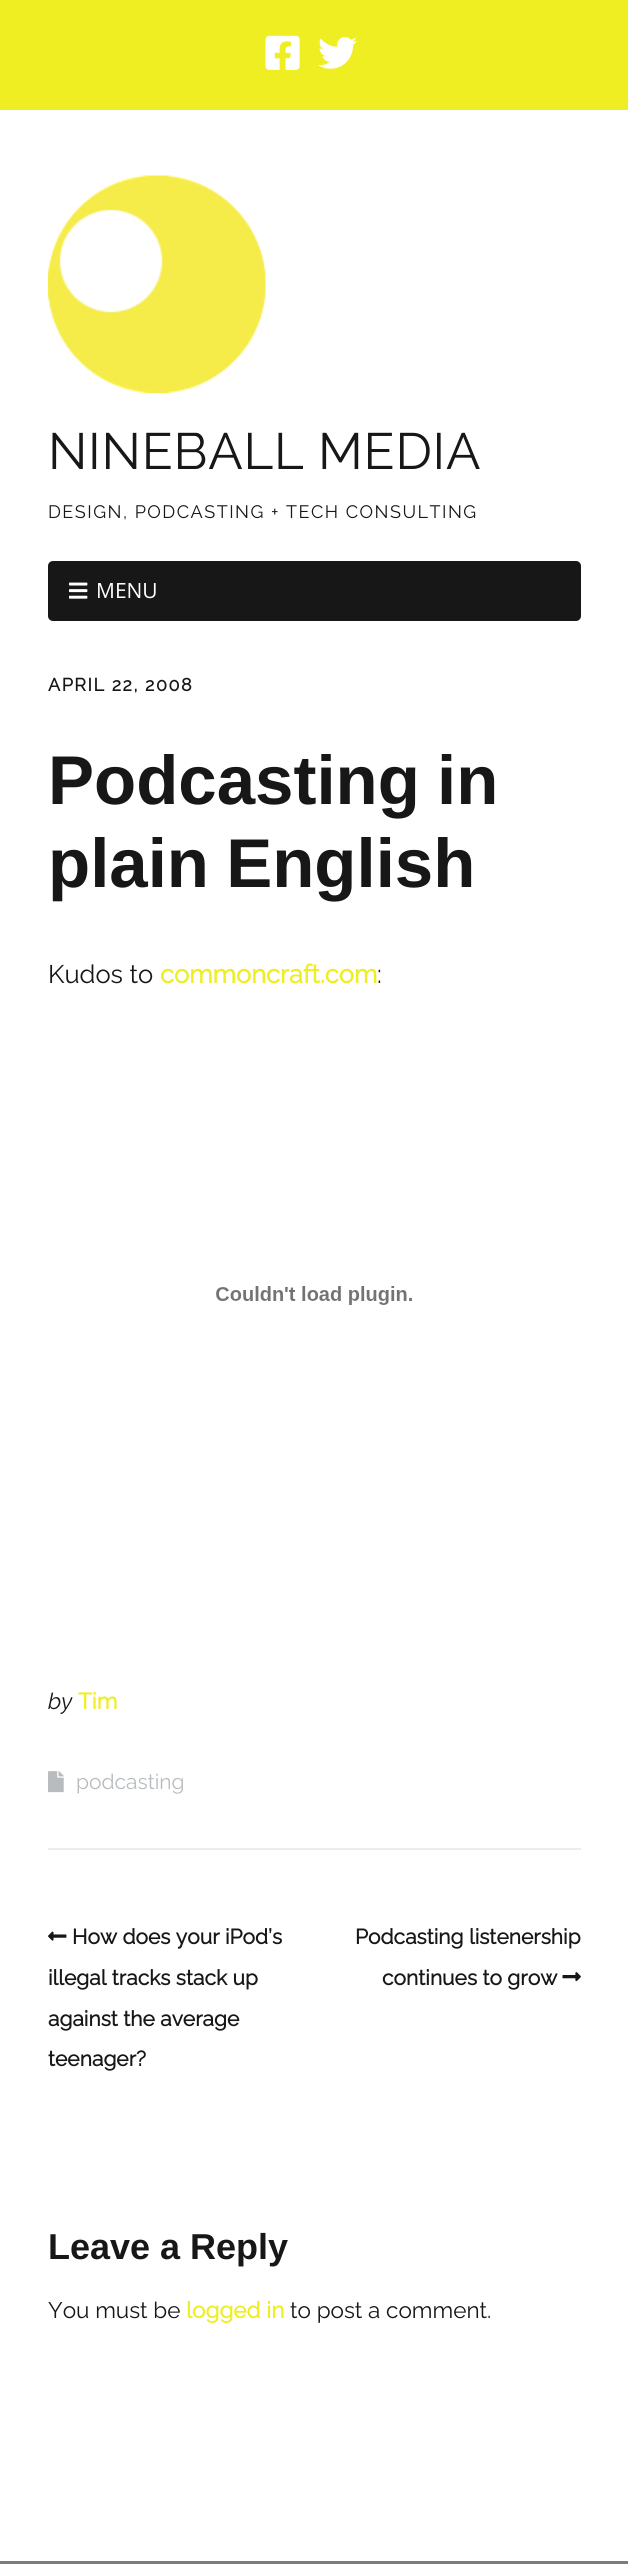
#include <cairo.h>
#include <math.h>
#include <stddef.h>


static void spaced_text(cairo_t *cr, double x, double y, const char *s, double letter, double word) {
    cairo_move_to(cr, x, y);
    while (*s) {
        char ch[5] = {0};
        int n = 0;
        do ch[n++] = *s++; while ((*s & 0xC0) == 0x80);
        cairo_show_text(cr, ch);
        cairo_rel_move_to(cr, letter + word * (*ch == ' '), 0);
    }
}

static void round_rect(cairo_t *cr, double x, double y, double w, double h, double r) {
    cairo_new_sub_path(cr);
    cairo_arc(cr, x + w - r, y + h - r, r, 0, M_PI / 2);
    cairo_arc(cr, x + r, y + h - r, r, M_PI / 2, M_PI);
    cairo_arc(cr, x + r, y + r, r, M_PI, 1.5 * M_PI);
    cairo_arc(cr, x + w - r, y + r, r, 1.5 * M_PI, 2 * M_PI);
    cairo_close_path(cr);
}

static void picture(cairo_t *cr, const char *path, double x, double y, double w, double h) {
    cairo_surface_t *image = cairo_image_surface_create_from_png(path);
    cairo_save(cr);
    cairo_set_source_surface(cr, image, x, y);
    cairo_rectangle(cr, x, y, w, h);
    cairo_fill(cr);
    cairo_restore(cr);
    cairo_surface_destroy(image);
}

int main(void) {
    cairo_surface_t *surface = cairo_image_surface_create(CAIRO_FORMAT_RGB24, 628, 2564);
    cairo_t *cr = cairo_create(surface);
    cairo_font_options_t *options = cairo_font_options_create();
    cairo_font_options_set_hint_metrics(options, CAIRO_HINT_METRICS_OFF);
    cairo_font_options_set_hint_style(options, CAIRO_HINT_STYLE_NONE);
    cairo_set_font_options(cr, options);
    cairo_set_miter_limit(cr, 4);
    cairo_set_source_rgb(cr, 0.486, 0.486, 0.486);
    cairo_paint(cr);
    cairo_set_source_rgb(cr, 0.933, 0.933, 0.133);
    cairo_rectangle(cr, 0, 0, 628, 110);
    cairo_fill(cr);
    picture(cr, "img1.png", 265, 35, 35, 35);
    picture(cr, "img2.png", 318, 37, 39, 32);
    cairo_set_source_rgb(cr, 1, 1, 1);
    cairo_rectangle(cr, 0, 110, 628, 2451);
    cairo_fill(cr);
    picture(cr, "img3.png", 48, 175, 218, 218);
    cairo_select_font_face(cr, "Raleway Thin", CAIRO_FONT_SLANT_NORMAL, CAIRO_FONT_WEIGHT_NORMAL);
    cairo_set_font_size(cr, 51);
    cairo_set_source_rgb(cr, 0.09, 0.09, 0.09);
    spaced_text(cr, 48, 469, "NINEBALL MEDIA", 0.75, 0);
    cairo_set_font_size(cr, 18);
    spaced_text(cr, 48, 518, "DESIGN, PODCASTING + TECH CONSULTING", 1.5, 0);
    round_rect(cr, 48, 561, 533, 60, 5);
    cairo_fill(cr);
    picture(cr, "img4.png", 69, 582, 19, 17);
    cairo_select_font_face(cr, "Open Sans", CAIRO_FONT_SLANT_NORMAL, CAIRO_FONT_WEIGHT_NORMAL);
    cairo_set_font_size(cr, 21);
    cairo_set_source_rgb(cr, 1, 1, 1);
    cairo_move_to(cr, 96, 598);
    cairo_show_text(cr, "MENU");
    cairo_set_source_rgb(cr, 0.918, 0.925, 0.933);
    cairo_rectangle(cr, 48, 1848, 533, 2);
    cairo_fill(cr);
    cairo_select_font_face(cr, "Raleway", CAIRO_FONT_SLANT_NORMAL, CAIRO_FONT_WEIGHT_BOLD);
    cairo_set_font_size(cr, 18);
    cairo_set_source_rgb(cr, 0.09, 0.09, 0.09);
    spaced_text(cr, 48, 691, "APRIL 22, 2008", 1.5, 0);
    cairo_select_font_face(cr, "Liberation Sans", CAIRO_FONT_SLANT_NORMAL, CAIRO_FONT_WEIGHT_BOLD);
    cairo_set_font_size(cr, 69);
    spaced_text(cr, 48, 804, "Podcasting in", 0, -2);
    spaced_text(cr, 48, 887, "plain English", 0, -2);
    cairo_select_font_face(cr, "Raleway Thin", CAIRO_FONT_SLANT_NORMAL, CAIRO_FONT_WEIGHT_NORMAL);
    cairo_set_font_size(cr, 25.5);
    cairo_move_to(cr, 48, 983);
    cairo_show_text(cr, "Kudos to");
    cairo_select_font_face(cr, "Raleway", CAIRO_FONT_SLANT_NORMAL, CAIRO_FONT_WEIGHT_BOLD);
    cairo_set_source_rgb(cr, 0.933, 0.933, 0.133);
    cairo_move_to(cr, 160, 983);
    cairo_show_text(cr, "commoncraft.com");
    cairo_select_font_face(cr, "Raleway Thin", CAIRO_FONT_SLANT_NORMAL, CAIRO_FONT_WEIGHT_NORMAL);
    cairo_set_source_rgb(cr, 0.09, 0.09, 0.09);
    cairo_move_to(cr, 377, 983);
    cairo_show_text(cr, ":");
    picture(cr, "img5.png", 216, 1286, 196, 19);
    cairo_select_font_face(cr, "Raleway Thin", CAIRO_FONT_SLANT_ITALIC, CAIRO_FONT_WEIGHT_NORMAL);
    cairo_set_font_size(cr, 22.5);
    cairo_move_to(cr, 48, 1709);
    cairo_show_text(cr, "by");
    cairo_select_font_face(cr, "Raleway", CAIRO_FONT_SLANT_NORMAL, CAIRO_FONT_WEIGHT_BOLD);
    cairo_set_source_rgb(cr, 0.933, 0.933, 0.133);
    cairo_move_to(cr, 78, 1709);
    cairo_show_text(cr, "Tim");
    picture(cr, "img6.png", 48, 1771, 16, 22);
    cairo_select_font_face(cr, "Raleway Thin", CAIRO_FONT_SLANT_NORMAL, CAIRO_FONT_WEIGHT_NORMAL);
    cairo_set_font_size(cr, 21);
    cairo_set_source_rgb(cr, 0.725, 0.737, 0.749);
    cairo_move_to(cr, 76, 1789);
    cairo_show_text(cr, "podcasting");
    picture(cr, "img7.png", 48, 1931, 19, 10);
    cairo_select_font_face(cr, "Raleway", CAIRO_FONT_SLANT_NORMAL, CAIRO_FONT_WEIGHT_BOLD);
    cairo_set_source_rgb(cr, 0.09, 0.09, 0.09);
    cairo_move_to(cr, 72, 1944);
    cairo_show_text(cr, "How does your iPod’s");
    cairo_move_to(cr, 48, 1985);
    cairo_show_text(cr, "illegal tracks stack up");
    cairo_move_to(cr, 48, 2026);
    cairo_show_text(cr, "against the average");
    cairo_move_to(cr, 48, 2066);
    cairo_show_text(cr, "teenager?");
    cairo_move_to(cr, 355, 1944);
    cairo_show_text(cr, "Podcasting listenership");
    cairo_move_to(cr, 382, 1985);
    cairo_show_text(cr, "continues to grow");
    picture(cr, "img8.png", 562, 1972, 19, 10);
    cairo_select_font_face(cr, "Liberation Sans", CAIRO_FONT_SLANT_NORMAL, CAIRO_FONT_WEIGHT_BOLD);
    cairo_set_font_size(cr, 36);
    cairo_move_to(cr, 48, 2259);
    cairo_show_text(cr, "Leave a Reply");
    cairo_select_font_face(cr, "Raleway Thin", CAIRO_FONT_SLANT_NORMAL, CAIRO_FONT_WEIGHT_NORMAL);
    cairo_set_font_size(cr, 22.5);
    cairo_move_to(cr, 48, 2318);
    cairo_show_text(cr, "You must be");
    cairo_select_font_face(cr, "Raleway", CAIRO_FONT_SLANT_NORMAL, CAIRO_FONT_WEIGHT_BOLD);
    cairo_set_source_rgb(cr, 0.933, 0.933, 0.133);
    cairo_move_to(cr, 186, 2318);
    cairo_show_text(cr, "logged in");
    cairo_select_font_face(cr, "Raleway Thin", CAIRO_FONT_SLANT_NORMAL, CAIRO_FONT_WEIGHT_NORMAL);
    cairo_set_source_rgb(cr, 0.09, 0.09, 0.09);
    cairo_move_to(cr, 290, 2318);
    cairo_show_text(cr, "to post a comment.");
    cairo_surface_write_to_png(surface, "page.png");
    cairo_font_options_destroy(options);
    cairo_destroy(cr);
    cairo_surface_destroy(surface);
    return 0;
}
